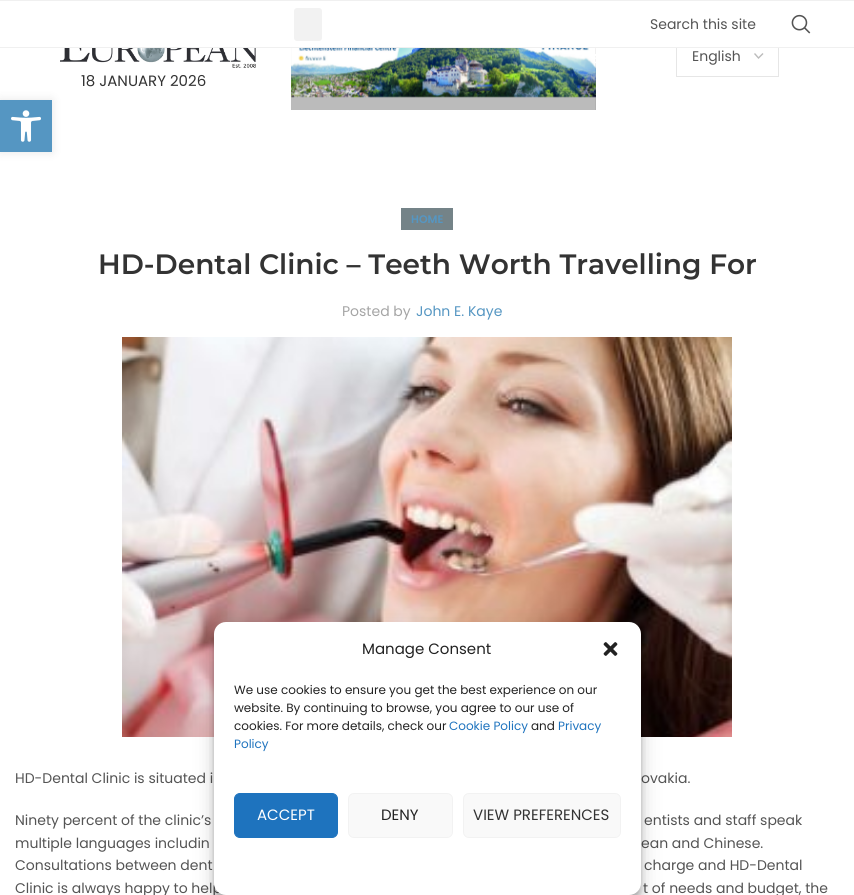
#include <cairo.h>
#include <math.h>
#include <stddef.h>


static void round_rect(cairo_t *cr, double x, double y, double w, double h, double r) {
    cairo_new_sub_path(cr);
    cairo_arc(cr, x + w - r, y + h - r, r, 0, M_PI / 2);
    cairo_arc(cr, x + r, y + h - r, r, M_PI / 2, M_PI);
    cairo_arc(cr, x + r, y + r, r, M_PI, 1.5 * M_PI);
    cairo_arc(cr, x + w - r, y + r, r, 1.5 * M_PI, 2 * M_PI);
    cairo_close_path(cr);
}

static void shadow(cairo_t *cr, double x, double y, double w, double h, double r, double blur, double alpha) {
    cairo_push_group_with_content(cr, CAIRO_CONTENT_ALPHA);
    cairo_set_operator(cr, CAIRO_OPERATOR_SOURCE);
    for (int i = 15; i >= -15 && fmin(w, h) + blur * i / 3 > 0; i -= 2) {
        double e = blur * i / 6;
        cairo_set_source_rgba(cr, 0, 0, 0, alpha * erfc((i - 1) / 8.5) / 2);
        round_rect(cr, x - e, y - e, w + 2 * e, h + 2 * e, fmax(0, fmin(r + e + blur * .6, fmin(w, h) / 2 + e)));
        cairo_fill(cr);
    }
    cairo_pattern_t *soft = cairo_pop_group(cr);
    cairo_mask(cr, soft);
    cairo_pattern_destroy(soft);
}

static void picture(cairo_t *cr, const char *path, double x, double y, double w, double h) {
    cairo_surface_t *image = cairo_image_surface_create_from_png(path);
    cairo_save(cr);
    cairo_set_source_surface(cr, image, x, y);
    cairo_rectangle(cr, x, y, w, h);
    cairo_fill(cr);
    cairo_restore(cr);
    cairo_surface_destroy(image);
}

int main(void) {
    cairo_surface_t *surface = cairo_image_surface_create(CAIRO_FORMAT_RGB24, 854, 895);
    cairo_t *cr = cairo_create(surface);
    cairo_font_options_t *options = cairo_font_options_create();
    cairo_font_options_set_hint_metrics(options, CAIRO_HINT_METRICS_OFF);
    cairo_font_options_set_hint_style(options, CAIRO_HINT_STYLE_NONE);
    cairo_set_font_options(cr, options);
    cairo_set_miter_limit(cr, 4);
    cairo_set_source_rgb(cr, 1, 1, 1);
    cairo_paint(cr);
    cairo_new_path(cr);
    cairo_move_to(cr, 754.5, 53.5);
    cairo_line_to(cr, 758.5, 58);
    cairo_line_to(cr, 763, 53.5);
    cairo_set_source_rgb(cr, 0.733, 0.733, 0.733);
    cairo_set_line_width(cr, 1.4);
    cairo_stroke(cr);
    cairo_rectangle(cr, 676.5, 35.5, 102, 41);
    cairo_set_source_rgb(cr, 0.902, 0.902, 0.902);
    cairo_set_line_width(cr, 1);
    cairo_stroke(cr);
    cairo_set_source_rgb(cr, 1, 1, 1);
    cairo_rectangle(cr, 676, 35, 103, 12);
    cairo_fill(cr);
    cairo_set_source_rgb(cr, 0.941, 0.941, 0.941);
    cairo_rectangle(cr, 0, 0, 854, 1);
    cairo_fill(cr);
    cairo_rectangle(cr, 0, 47, 854, 1);
    cairo_fill(cr);
    cairo_set_source_rgb(cr, 0.949, 0.949, 0.949);
    round_rect(cr, 294, 8, 28, 33, 3);
    cairo_fill(cr);
    cairo_select_font_face(cr, "Poppins", CAIRO_FONT_SLANT_NORMAL, CAIRO_FONT_WEIGHT_NORMAL);
    cairo_set_font_size(cr, 14);
    cairo_set_source_rgb(cr, 0.329, 0.329, 0.329);
    cairo_move_to(cr, 650, 29);
    cairo_show_text(cr, "Search this site");
    picture(cr, "img1.png", 791, 14, 20, 20);
    cairo_set_source_rgb(cr, 0.733, 0.733, 0.733);
    cairo_rectangle(cr, 291, 48, 305, 62);
    cairo_fill(cr);
    picture(cr, "img2.png", 291, 48, 305, 50);
    picture(cr, "img3.png", 595, 48, 1, 62);
    cairo_set_source_rgb(cr, 0.329, 0.329, 0.329);
    cairo_move_to(cr, 692, 61);
    cairo_show_text(cr, "English");
    picture(cr, "img4.png", 60, 48, 199, 20);
    cairo_set_font_size(cr, 15);
    cairo_set_source_rgb(cr, 0.2, 0.2, 0.2);
    cairo_move_to(cr, 81, 86);
    cairo_show_text(cr, "18 JANUARY 2026");
    cairo_set_source_rgb(cr, 0.455, 0.514, 0.533);
    cairo_rectangle(cr, 401, 208, 52, 22);
    cairo_fill(cr);
    cairo_select_font_face(cr, "Poppins SemiBold", CAIRO_FONT_SLANT_NORMAL, CAIRO_FONT_WEIGHT_NORMAL);
    cairo_set_font_size(cr, 11);
    cairo_set_source_rgb(cr, 0.333, 0.588, 0.761);
    cairo_move_to(cr, 411, 223);
    cairo_show_text(cr, "HOME");
    cairo_select_font_face(cr, "Montserrat SemiBold", CAIRO_FONT_SLANT_NORMAL, CAIRO_FONT_WEIGHT_NORMAL);
    cairo_set_font_size(cr, 28);
    cairo_set_source_rgb(cr, 0.2, 0.2, 0.2);
    cairo_move_to(cr, 98, 274);
    cairo_show_text(cr, "HD-Dental Clinic – Teeth Worth Travelling For");
    cairo_select_font_face(cr, "Poppins", CAIRO_FONT_SLANT_NORMAL, CAIRO_FONT_WEIGHT_NORMAL);
    cairo_set_font_size(cr, 14);
    cairo_set_source_rgb(cr, 0.647, 0.647, 0.647);
    cairo_move_to(cr, 342, 316);
    cairo_show_text(cr, "Posted by");
    cairo_set_source_rgb(cr, 0.333, 0.588, 0.761);
    cairo_move_to(cr, 416, 316);
    cairo_show_text(cr, "John E. Kaye");
    picture(cr, "img5.png", 122, 337, 610, 400);
    cairo_set_source_rgb(cr, 0.329, 0.329, 0.329);
    cairo_move_to(cr, 15, 783);
    cairo_show_text(cr, "HD-Dental Clinic is situated i");
    cairo_move_to(cr, 641, 783);
    cairo_show_text(cr, "ovakia.");
    cairo_move_to(cr, 15, 825);
    cairo_show_text(cr, "Ninety percent of the clinic’s");
    cairo_move_to(cr, 644, 825);
    cairo_show_text(cr, "entists and staff speak");
    cairo_move_to(cr, 15, 848);
    cairo_show_text(cr, "multiple languages includin");
    cairo_move_to(cr, 641, 848);
    cairo_show_text(cr, "ean and Chinese.");
    cairo_move_to(cr, 15, 870);
    cairo_show_text(cr, "Consultations between dent");
    cairo_move_to(cr, 644, 870);
    cairo_show_text(cr, "charge and HD-Dental");
    cairo_move_to(cr, 15, 893);
    cairo_show_text(cr, "Clinic is always happy to help");
    cairo_move_to(cr, 643, 893);
    cairo_show_text(cr, "t of needs and budget, the");
    cairo_set_source_rgb(cr, 0, 0, 0);
    shadow(cr, 0, 100, 52, 52, 0, 5, 0.1);
    cairo_set_source_rgb(cr, 0.333, 0.588, 0.761);
    cairo_rectangle(cr, 0, 100, 52, 52);
    cairo_fill(cr);
    picture(cr, "img6.png", 11, 110, 30, 32);
    cairo_set_source_rgb(cr, 0, 0, 0);
    shadow(cr, 214, 628, 427, 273, 12, 3, 0.23);
    shadow(cr, 214, 632, 427, 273, 12, 10, 0.19);
    cairo_set_source_rgb(cr, 1, 1, 1);
    round_rect(cr, 214, 622, 427, 273, 12);
    cairo_fill(cr);
    cairo_set_font_size(cr, 15);
    cairo_set_source_rgb(cr, 0.133, 0.133, 0.133);
    cairo_move_to(cr, 362, 654);
    cairo_show_text(cr, "Manage Consent");
    picture(cr, "img7.png", 603, 642, 15, 14);
    cairo_set_font_size(cr, 12);
    cairo_move_to(cr, 234, 694);
    cairo_show_text(cr, "We use cookies to ensure you get the best experience on our");
    cairo_move_to(cr, 234, 712);
    cairo_show_text(cr, "website. By continuing to browse, you agree to our use of");
    cairo_move_to(cr, 234, 730);
    cairo_show_text(cr, "cookies. For more details, check our");
    cairo_set_source_rgb(cr, 0.118, 0.451, 0.745);
    cairo_move_to(cr, 449, 730);
    cairo_show_text(cr, "Cookie Policy");
    cairo_set_source_rgb(cr, 0.133, 0.133, 0.133);
    cairo_move_to(cr, 531, 730);
    cairo_show_text(cr, "and");
    cairo_set_source_rgb(cr, 0.118, 0.451, 0.745);
    cairo_move_to(cr, 558, 730);
    cairo_show_text(cr, "Privacy");
    cairo_move_to(cr, 234, 748);
    cairo_show_text(cr, "Policy");
    round_rect(cr, 234.5, 793.5, 103, 44, 5.5);
    cairo_fill_preserve(cr);
    cairo_stroke(cr);
    cairo_set_font_size(cr, 15);
    cairo_set_source_rgb(cr, 1, 1, 1);
    cairo_move_to(cr, 257, 820);
    cairo_show_text(cr, "ACCEPT");
    cairo_set_source_rgb(cr, 0.976, 0.976, 0.976);
    round_rect(cr, 348.5, 793.5, 104, 44, 5.5);
    cairo_fill_preserve(cr);
    cairo_set_source_rgb(cr, 0.949, 0.949, 0.949);
    cairo_stroke(cr);
    cairo_set_source_rgb(cr, 0.133, 0.133, 0.133);
    cairo_move_to(cr, 381, 820);
    cairo_show_text(cr, "DENY");
    cairo_set_source_rgb(cr, 0.976, 0.976, 0.976);
    round_rect(cr, 463.5, 793.5, 157, 44, 5.5);
    cairo_fill_preserve(cr);
    cairo_set_source_rgb(cr, 0.949, 0.949, 0.949);
    cairo_stroke(cr);
    cairo_set_source_rgb(cr, 0.2, 0.2, 0.2);
    cairo_move_to(cr, 473, 820);
    cairo_show_text(cr, "VIEW PREFERENCES");
    cairo_surface_write_to_png(surface, "page.png");
    cairo_font_options_destroy(options);
    cairo_destroy(cr);
    cairo_surface_destroy(surface);
    return 0;
}
